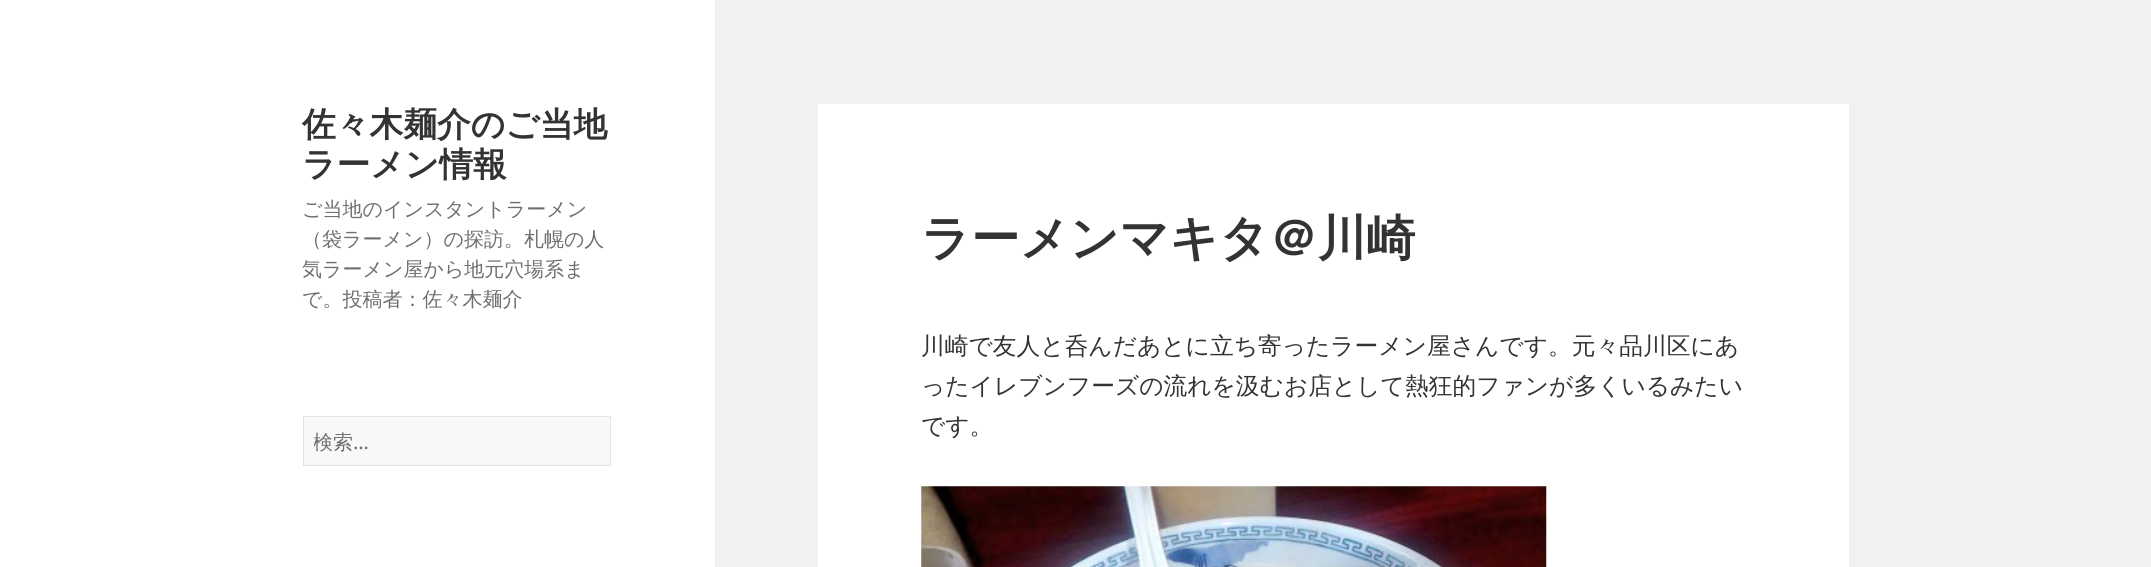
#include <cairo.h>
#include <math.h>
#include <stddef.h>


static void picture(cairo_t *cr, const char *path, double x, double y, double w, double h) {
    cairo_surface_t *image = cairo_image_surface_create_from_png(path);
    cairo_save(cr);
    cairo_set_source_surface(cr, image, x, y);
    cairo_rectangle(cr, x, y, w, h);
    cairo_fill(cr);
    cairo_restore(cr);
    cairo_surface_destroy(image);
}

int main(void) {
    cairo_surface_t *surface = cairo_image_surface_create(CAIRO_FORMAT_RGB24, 2151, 567);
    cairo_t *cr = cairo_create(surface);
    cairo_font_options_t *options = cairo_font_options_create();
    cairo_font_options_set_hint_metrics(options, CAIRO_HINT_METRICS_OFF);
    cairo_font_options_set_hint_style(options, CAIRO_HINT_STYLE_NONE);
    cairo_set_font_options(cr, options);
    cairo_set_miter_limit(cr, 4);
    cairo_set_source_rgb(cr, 0.945, 0.945, 0.945);
    cairo_paint(cr);
    cairo_set_source_rgb(cr, 1, 1, 1);
    cairo_rectangle(cr, 0, 0, 715, 567);
    cairo_fill(cr);
    cairo_select_font_face(cr, "WenQuanYi Zen Hei", CAIRO_FONT_SLANT_NORMAL, CAIRO_FONT_WEIGHT_BOLD);
    cairo_set_font_size(cr, 33.75);
    cairo_set_source_rgb(cr, 0.2, 0.2, 0.2);
    cairo_move_to(cr, 302, 136);
    cairo_show_text(cr, "佐々木麺介のご当地");
    cairo_move_to(cr, 302, 176);
    cairo_show_text(cr, "ラーメン情報");
    cairo_select_font_face(cr, "WenQuanYi Zen Hei Medium", CAIRO_FONT_SLANT_NORMAL, CAIRO_FONT_WEIGHT_NORMAL);
    cairo_set_font_size(cr, 20);
    cairo_set_source_rgb(cr, 0.431, 0.431, 0.431);
    cairo_move_to(cr, 302, 216);
    cairo_show_text(cr, "ご当地のインスタントラーメン");
    cairo_move_to(cr, 302, 246);
    cairo_show_text(cr, "（袋ラーメン）の探訪。札幌の人");
    cairo_move_to(cr, 302, 276);
    cairo_show_text(cr, "気ラーメン屋から地元穴場系ま");
    cairo_move_to(cr, 302, 306);
    cairo_show_text(cr, "で。投稿者：佐々木麺介");
    cairo_set_source_rgb(cr, 0.969, 0.969, 0.969);
    cairo_rectangle(cr, 303.5, 416.5, 307, 49);
    cairo_fill_preserve(cr);
    cairo_set_source_rgb(cr, 0.89, 0.89, 0.89);
    cairo_set_line_width(cr, 1);
    cairo_stroke(cr);
    cairo_save(cr);
    cairo_rectangle(cr, 314, 428, 281, 28);
    cairo_clip(cr);
    cairo_set_source_rgb(cr, 0.431, 0.431, 0.431);
    cairo_move_to(cr, 313, 449);
    cairo_show_text(cr, "検索");
    cairo_restore(cr);
    cairo_select_font_face(cr, "Noto Sans", CAIRO_FONT_SLANT_NORMAL, CAIRO_FONT_WEIGHT_NORMAL);
    cairo_set_source_rgb(cr, 0.431, 0.431, 0.431);
    cairo_move_to(cr, 353, 449);
    cairo_show_text(cr, "…");
    cairo_set_source_rgb(cr, 1, 1, 1);
    cairo_rectangle(cr, 818, 104, 1031, 463);
    cairo_fill(cr);
    cairo_select_font_face(cr, "WenQuanYi Zen Hei", CAIRO_FONT_SLANT_NORMAL, CAIRO_FONT_WEIGHT_BOLD);
    cairo_set_font_size(cr, 48.75);
    cairo_set_source_rgb(cr, 0.2, 0.2, 0.2);
    cairo_move_to(cr, 921, 255);
    cairo_show_text(cr, "ラーメンマキタ＠川崎");
    cairo_select_font_face(cr, "WenQuanYi Zen Hei Medium", CAIRO_FONT_SLANT_NORMAL, CAIRO_FONT_WEIGHT_NORMAL);
    cairo_set_font_size(cr, 23.75);
    cairo_move_to(cr, 921, 354);
    cairo_show_text(cr, "川崎で友人と呑んだあとに立ち寄ったラーメン屋さんです。元々品川区にあ");
    cairo_move_to(cr, 921, 394);
    cairo_show_text(cr, "ったイレブンフーズの流れを汲むお店として熱狂的ファンが多くいるみたい");
    cairo_move_to(cr, 921, 434);
    cairo_show_text(cr, "です。");
    picture(cr, "img1.png", 921, 486, 626, 81);
    cairo_surface_write_to_png(surface, "page.png");
    cairo_font_options_destroy(options);
    cairo_destroy(cr);
    cairo_surface_destroy(surface);
    return 0;
}
